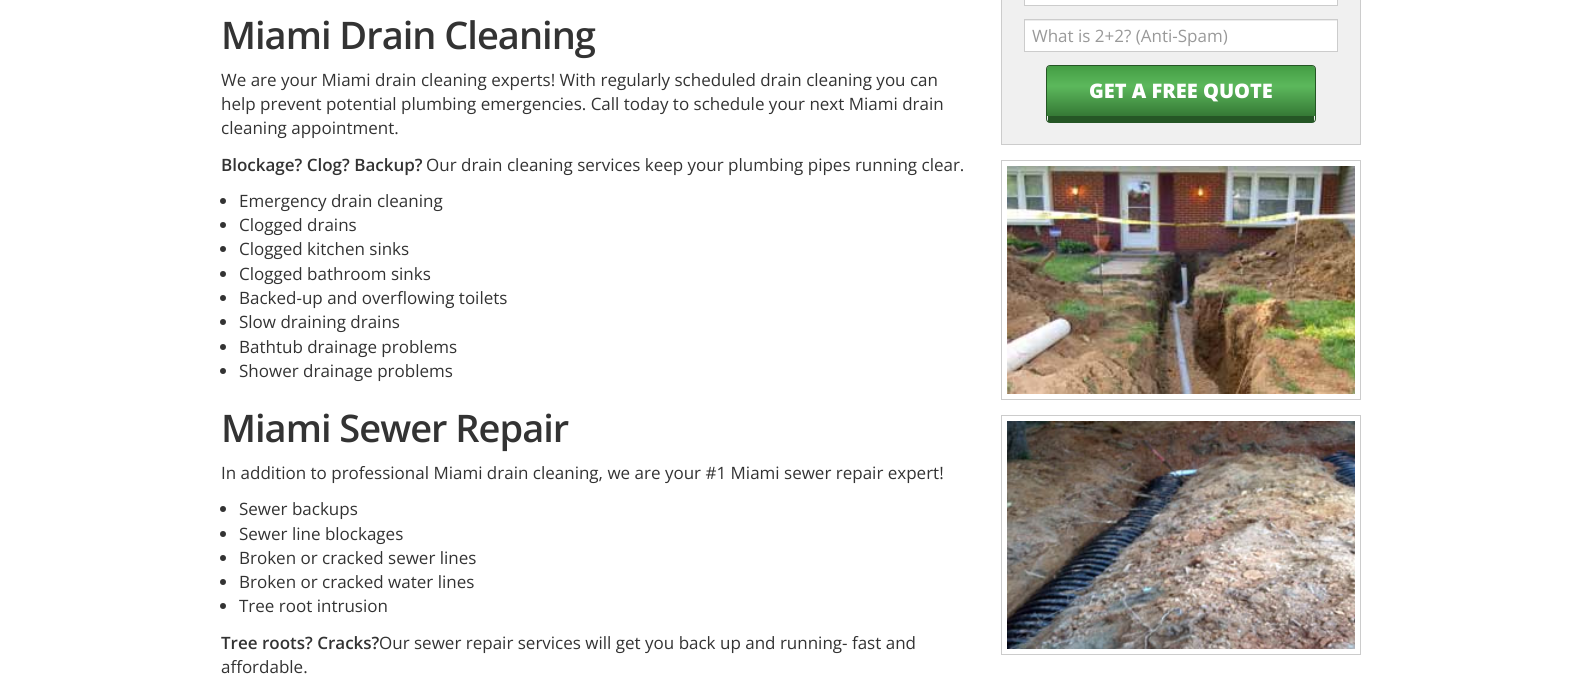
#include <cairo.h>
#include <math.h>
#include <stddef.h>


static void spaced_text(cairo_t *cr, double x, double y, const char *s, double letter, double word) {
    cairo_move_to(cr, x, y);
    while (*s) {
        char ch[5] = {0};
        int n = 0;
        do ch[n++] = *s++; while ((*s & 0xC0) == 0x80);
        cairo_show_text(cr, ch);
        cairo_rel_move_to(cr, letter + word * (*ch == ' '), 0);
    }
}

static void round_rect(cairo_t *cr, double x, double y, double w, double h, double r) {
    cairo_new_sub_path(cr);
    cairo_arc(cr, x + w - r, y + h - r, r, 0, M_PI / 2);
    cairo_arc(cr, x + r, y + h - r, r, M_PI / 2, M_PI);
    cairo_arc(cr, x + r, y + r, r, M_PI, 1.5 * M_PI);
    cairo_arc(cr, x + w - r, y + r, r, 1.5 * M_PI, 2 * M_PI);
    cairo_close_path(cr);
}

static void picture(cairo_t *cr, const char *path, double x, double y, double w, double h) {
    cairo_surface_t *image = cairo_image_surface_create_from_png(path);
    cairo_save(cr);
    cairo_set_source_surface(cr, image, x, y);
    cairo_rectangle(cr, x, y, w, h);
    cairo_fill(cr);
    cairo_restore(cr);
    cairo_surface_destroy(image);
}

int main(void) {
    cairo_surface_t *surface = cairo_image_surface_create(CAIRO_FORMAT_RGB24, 1581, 697);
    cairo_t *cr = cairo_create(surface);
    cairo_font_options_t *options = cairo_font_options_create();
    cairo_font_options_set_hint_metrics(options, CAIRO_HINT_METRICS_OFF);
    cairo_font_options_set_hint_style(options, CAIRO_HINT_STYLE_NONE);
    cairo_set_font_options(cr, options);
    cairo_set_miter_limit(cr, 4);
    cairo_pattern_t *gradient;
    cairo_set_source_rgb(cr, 1, 1, 1);
    cairo_paint(cr);
    cairo_select_font_face(cr, "Open Sans SemiBold", CAIRO_FONT_SLANT_NORMAL, CAIRO_FONT_WEIGHT_NORMAL);
    cairo_set_font_size(cr, 38);
    cairo_set_source_rgb(cr, 0.2, 0.2, 0.2);
    spaced_text(cr, 221, 49, "Miami Drain Cleaning", -1, 0);
    cairo_select_font_face(cr, "Open Sans", CAIRO_FONT_SLANT_NORMAL, CAIRO_FONT_WEIGHT_NORMAL);
    cairo_set_font_size(cr, 17);
    cairo_move_to(cr, 221, 86);
    cairo_show_text(cr, "We are your Miami drain cleaning experts! With regularly scheduled drain cleaning you can");
    cairo_move_to(cr, 221, 110);
    cairo_show_text(cr, "help prevent potential plumbing emergencies. Call today to schedule your next Miami drain");
    cairo_move_to(cr, 221, 134);
    cairo_show_text(cr, "cleaning appointment.");
    cairo_select_font_face(cr, "Open Sans SemiBold", CAIRO_FONT_SLANT_NORMAL, CAIRO_FONT_WEIGHT_NORMAL);
    cairo_move_to(cr, 221, 171);
    cairo_show_text(cr, "Blockage? Clog? Backup?");
    cairo_select_font_face(cr, "Open Sans", CAIRO_FONT_SLANT_NORMAL, CAIRO_FONT_WEIGHT_NORMAL);
    cairo_move_to(cr, 426, 171);
    cairo_show_text(cr, "Our drain cleaning services keep your plumbing pipes running clear.");
    cairo_new_path(cr);
    cairo_arc(cr, 223, 201, 3, 0, 2 * M_PI);
    cairo_fill(cr);
    cairo_move_to(cr, 239, 207);
    cairo_show_text(cr, "Emergency drain cleaning");
    cairo_new_path(cr);
    cairo_arc(cr, 223, 225, 3, 0, 2 * M_PI);
    cairo_fill(cr);
    cairo_move_to(cr, 239, 231);
    cairo_show_text(cr, "Clogged drains");
    cairo_new_path(cr);
    cairo_arc(cr, 223, 249, 3, 0, 2 * M_PI);
    cairo_fill(cr);
    cairo_move_to(cr, 239, 255);
    cairo_show_text(cr, "Clogged kitchen sinks");
    cairo_new_path(cr);
    cairo_arc(cr, 223, 274, 3, 0, 2 * M_PI);
    cairo_fill(cr);
    cairo_move_to(cr, 239, 280);
    cairo_show_text(cr, "Clogged bathroom sinks");
    cairo_new_path(cr);
    cairo_arc(cr, 223, 298, 3, 0, 2 * M_PI);
    cairo_fill(cr);
    cairo_move_to(cr, 239, 304);
    cairo_show_text(cr, "Backed-up and overflowing toilets");
    cairo_new_path(cr);
    cairo_arc(cr, 223, 322, 3, 0, 2 * M_PI);
    cairo_fill(cr);
    cairo_move_to(cr, 239, 328);
    cairo_show_text(cr, "Slow draining drains");
    cairo_new_path(cr);
    cairo_arc(cr, 223, 347, 3, 0, 2 * M_PI);
    cairo_fill(cr);
    cairo_move_to(cr, 239, 353);
    cairo_show_text(cr, "Bathtub drainage problems");
    cairo_new_path(cr);
    cairo_arc(cr, 223, 371, 3, 0, 2 * M_PI);
    cairo_fill(cr);
    cairo_move_to(cr, 239, 377);
    cairo_show_text(cr, "Shower drainage problems");
    cairo_select_font_face(cr, "Open Sans SemiBold", CAIRO_FONT_SLANT_NORMAL, CAIRO_FONT_WEIGHT_NORMAL);
    cairo_set_font_size(cr, 38);
    spaced_text(cr, 221, 442, "Miami Sewer Repair", -1, 0);
    cairo_select_font_face(cr, "Open Sans", CAIRO_FONT_SLANT_NORMAL, CAIRO_FONT_WEIGHT_NORMAL);
    cairo_set_font_size(cr, 17);
    cairo_move_to(cr, 221, 479);
    cairo_show_text(cr, "In addition to professional Miami drain cleaning, we are your #1 Miami sewer repair expert!");
    cairo_new_path(cr);
    cairo_arc(cr, 223, 509, 3, 0, 2 * M_PI);
    cairo_fill(cr);
    cairo_move_to(cr, 239, 515);
    cairo_show_text(cr, "Sewer backups");
    cairo_new_path(cr);
    cairo_arc(cr, 223, 534, 3, 0, 2 * M_PI);
    cairo_fill(cr);
    cairo_move_to(cr, 239, 540);
    cairo_show_text(cr, "Sewer line blockages");
    cairo_new_path(cr);
    cairo_arc(cr, 223, 558, 3, 0, 2 * M_PI);
    cairo_fill(cr);
    cairo_move_to(cr, 239, 564);
    cairo_show_text(cr, "Broken or cracked sewer lines");
    cairo_new_path(cr);
    cairo_arc(cr, 223, 582, 3, 0, 2 * M_PI);
    cairo_fill(cr);
    cairo_move_to(cr, 239, 588);
    cairo_show_text(cr, "Broken or cracked water lines");
    cairo_new_path(cr);
    cairo_arc(cr, 223, 606, 3, 0, 2 * M_PI);
    cairo_fill(cr);
    cairo_move_to(cr, 239, 612);
    cairo_show_text(cr, "Tree root intrusion");
    cairo_select_font_face(cr, "Open Sans SemiBold", CAIRO_FONT_SLANT_NORMAL, CAIRO_FONT_WEIGHT_NORMAL);
    cairo_move_to(cr, 221, 649);
    cairo_show_text(cr, "Tree roots? Cracks?");
    cairo_select_font_face(cr, "Open Sans", CAIRO_FONT_SLANT_NORMAL, CAIRO_FONT_WEIGHT_NORMAL);
    cairo_move_to(cr, 379, 649);
    cairo_show_text(cr, "Our sewer repair services will get you back up and running- fast and");
    cairo_move_to(cr, 221, 673);
    cairo_show_text(cr, "affordable.");
    cairo_set_source_rgb(cr, 0.941, 0.941, 0.941);
    cairo_rectangle(cr, 1001.5, -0.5, 359, 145);
    cairo_fill_preserve(cr);
    cairo_set_source_rgb(cr, 0.8, 0.8, 0.8);
    cairo_set_line_width(cr, 1);
    cairo_stroke(cr);
    cairo_set_source_rgb(cr, 1, 1, 1);
    cairo_rectangle(cr, 1024.5, -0.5, 313, 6);
    cairo_fill_preserve(cr);
    cairo_set_source_rgb(cr, 0.8, 0.8, 0.8);
    cairo_stroke(cr);
    cairo_set_source_rgb(cr, 1, 1, 1);
    cairo_rectangle(cr, 1025, 21, 312, 30);
    cairo_fill(cr);
    cairo_set_source_rgb(cr, 0.925, 0.925, 0.925);
    cairo_rectangle(cr, 1025, 20, 312, 1);
    cairo_fill(cr);
    cairo_rectangle(cr, 1024.5, 19.5, 313, 32);
    cairo_set_source_rgb(cr, 0.8, 0.8, 0.8);
    cairo_stroke(cr);
    cairo_set_source_rgb(cr, 0.6, 0.6, 0.6);
    cairo_move_to(cr, 1032, 42);
    cairo_show_text(cr, "What is 2+2? (Anti-Spam)");
    gradient = cairo_pattern_create_linear(1181, 66, 1181, 116);
    cairo_pattern_add_color_stop_rgba(gradient, 0, 0.267, 0.616, 0.267, 1);
    cairo_pattern_add_color_stop_rgba(gradient, 0.4, 0.361, 0.722, 0.361, 1);
    cairo_pattern_add_color_stop_rgba(gradient, 1, 0.208, 0.475, 0.208, 1);
    cairo_set_source(cr, gradient);
    cairo_pattern_destroy(gradient);
    cairo_new_path(cr);
    cairo_move_to(cr, 1050, 66);
    cairo_line_to(cr, 1312, 66);
    cairo_curve_to(cr, 1314, 66, 1315, 67, 1315, 69);
    cairo_line_to(cr, 1315, 116);
    cairo_line_to(cr, 1047, 116);
    cairo_line_to(cr, 1047, 69);
    cairo_curve_to(cr, 1047, 67, 1048, 66, 1050, 66);
    cairo_close_path(cr);
    cairo_fill(cr);
    round_rect(cr, 1046.5, 65.5, 269, 57, 3.5);
    cairo_set_source_rgb(cr, 0.145, 0.337, 0.145);
    cairo_stroke(cr);
    cairo_rectangle(cr, 1048, 116, 266, 6);
    cairo_fill(cr);
    cairo_select_font_face(cr, "Open Sans ExtraBold", CAIRO_FONT_SLANT_NORMAL, CAIRO_FONT_WEIGHT_NORMAL);
    cairo_set_font_size(cr, 20);
    cairo_set_source_rgb(cr, 1, 1, 1);
    cairo_move_to(cr, 1089, 98);
    cairo_show_text(cr, "GET A FREE QUOTE");
    cairo_rectangle(cr, 1001.5, 160.5, 359, 239);
    cairo_set_source_rgb(cr, 0.8, 0.8, 0.8);
    cairo_stroke(cr);
    picture(cr, "img1.png", 1007, 166, 348, 228);
    cairo_rectangle(cr, 1001.5, 415.5, 359, 239);
    cairo_stroke(cr);
    picture(cr, "img2.png", 1007, 421, 348, 228);
    cairo_surface_write_to_png(surface, "page.png");
    cairo_font_options_destroy(options);
    cairo_destroy(cr);
    cairo_surface_destroy(surface);
    return 0;
}
